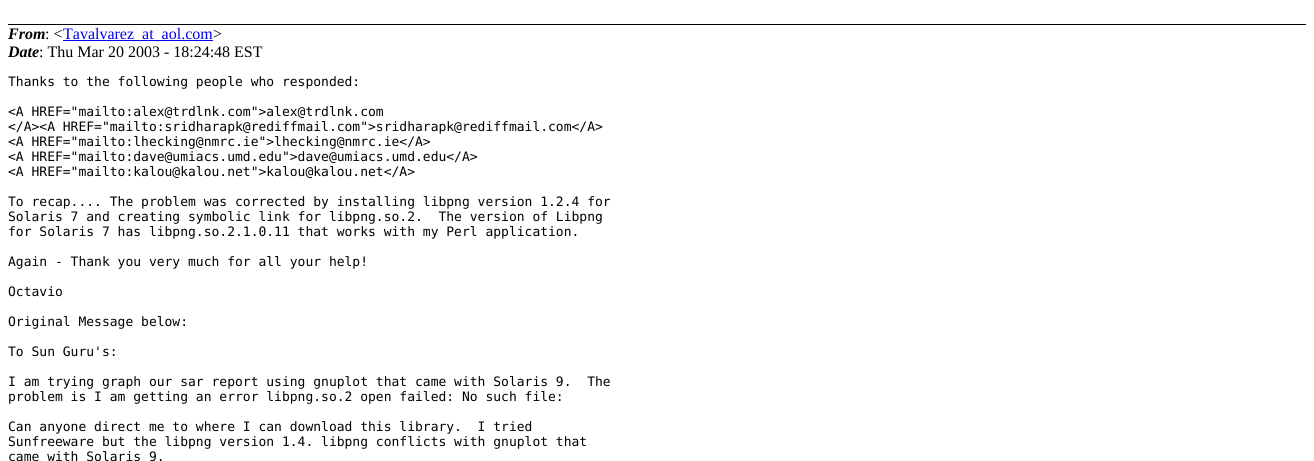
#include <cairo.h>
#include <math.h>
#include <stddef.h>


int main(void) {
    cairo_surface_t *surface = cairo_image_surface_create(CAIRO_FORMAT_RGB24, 1314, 461);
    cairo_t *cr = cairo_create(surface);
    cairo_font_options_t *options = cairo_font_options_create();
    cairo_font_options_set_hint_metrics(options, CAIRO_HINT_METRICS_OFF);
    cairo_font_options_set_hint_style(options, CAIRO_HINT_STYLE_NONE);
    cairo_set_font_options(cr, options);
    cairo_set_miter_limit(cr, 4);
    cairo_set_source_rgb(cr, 1, 1, 1);
    cairo_paint(cr);
    cairo_set_source_rgb(cr, 0, 0, 0);
    cairo_rectangle(cr, 8, 24, 1298, 1);
    cairo_fill(cr);
    cairo_select_font_face(cr, "Liberation Serif", CAIRO_FONT_SLANT_ITALIC, CAIRO_FONT_WEIGHT_BOLD);
    cairo_set_font_size(cr, 16);
    cairo_move_to(cr, 8, 39);
    cairo_show_text(cr, "From");
    cairo_select_font_face(cr, "Liberation Serif", CAIRO_FONT_SLANT_NORMAL, CAIRO_FONT_WEIGHT_NORMAL);
    cairo_move_to(cr, 45, 39);
    cairo_show_text(cr, ": <");
    cairo_set_source_rgb(cr, 0, 0, 0.933);
    cairo_rectangle(cr, 63, 40, 150, 1);
    cairo_fill(cr);
    cairo_move_to(cr, 63, 39);
    cairo_show_text(cr, "Tavalvarez_at_aol.com");
    cairo_set_source_rgb(cr, 0, 0, 0);
    cairo_move_to(cr, 213, 39);
    cairo_show_text(cr, ">");
    cairo_select_font_face(cr, "Liberation Serif", CAIRO_FONT_SLANT_ITALIC, CAIRO_FONT_WEIGHT_BOLD);
    cairo_move_to(cr, 8, 57);
    cairo_show_text(cr, "Date");
    cairo_select_font_face(cr, "Liberation Serif", CAIRO_FONT_SLANT_NORMAL, CAIRO_FONT_WEIGHT_NORMAL);
    cairo_move_to(cr, 39, 57);
    cairo_show_text(cr, ": Thu Mar 20 2003 - 18:24:48 EST");
    cairo_select_font_face(cr, "DejaVu Sans Mono", CAIRO_FONT_SLANT_NORMAL, CAIRO_FONT_WEIGHT_NORMAL);
    cairo_set_font_size(cr, 13);
    cairo_move_to(cr, 8, 86);
    cairo_show_text(cr, "Thanks to the following people who responded:");
    cairo_move_to(cr, 8, 116);
    cairo_show_text(cr, "<A HREF=\"mailto:alex@trdlnk.com\">alex@trdlnk.com");
    cairo_move_to(cr, 8, 131);
    cairo_show_text(cr, "</A><A HREF=\"mailto:sridharapk@rediffmail.com\">sridharapk@rediffmail.com</A>");
    cairo_move_to(cr, 8, 146);
    cairo_show_text(cr, "<A HREF=\"mailto:lhecking@nmrc.ie\">lhecking@nmrc.ie</A>");
    cairo_move_to(cr, 8, 161);
    cairo_show_text(cr, "<A HREF=\"mailto:dave@umiacs.umd.edu\">dave@umiacs.umd.edu</A>");
    cairo_move_to(cr, 8, 176);
    cairo_show_text(cr, "<A HREF=\"mailto:kalou@kalou.net\">kalou@kalou.net</A>");
    cairo_move_to(cr, 8, 206);
    cairo_show_text(cr, "To recap.... The problem was corrected by installing libpng version 1.2.4 for");
    cairo_move_to(cr, 8, 221);
    cairo_show_text(cr, "Solaris 7 and creating symbolic link for libpng.so.2.  The version of Libpng");
    cairo_move_to(cr, 8, 236);
    cairo_show_text(cr, "for Solaris 7 has libpng.so.2.1.0.11 that works with my Perl application.");
    cairo_move_to(cr, 8, 266);
    cairo_show_text(cr, "Again - Thank you very much for all your help!");
    cairo_move_to(cr, 8, 296);
    cairo_show_text(cr, "Octavio");
    cairo_move_to(cr, 8, 326);
    cairo_show_text(cr, "Original Message below:");
    cairo_move_to(cr, 8, 356);
    cairo_show_text(cr, "To Sun Guru's:");
    cairo_move_to(cr, 8, 386);
    cairo_show_text(cr, "I am trying graph our sar report using gnuplot that came with Solaris 9.  The");
    cairo_move_to(cr, 8, 401);
    cairo_show_text(cr, "problem is I am getting an error libpng.so.2 open failed: No such file:");
    cairo_move_to(cr, 8, 431);
    cairo_show_text(cr, "Can anyone direct me to where I can download this library.  I tried");
    cairo_move_to(cr, 8, 446);
    cairo_show_text(cr, "Sunfreeware but the libpng version 1.4. libpng conflicts with gnuplot that");
    cairo_move_to(cr, 8, 461);
    cairo_show_text(cr, "came with Solaris 9.");
    cairo_surface_write_to_png(surface, "page.png");
    cairo_font_options_destroy(options);
    cairo_destroy(cr);
    cairo_surface_destroy(surface);
    return 0;
}
